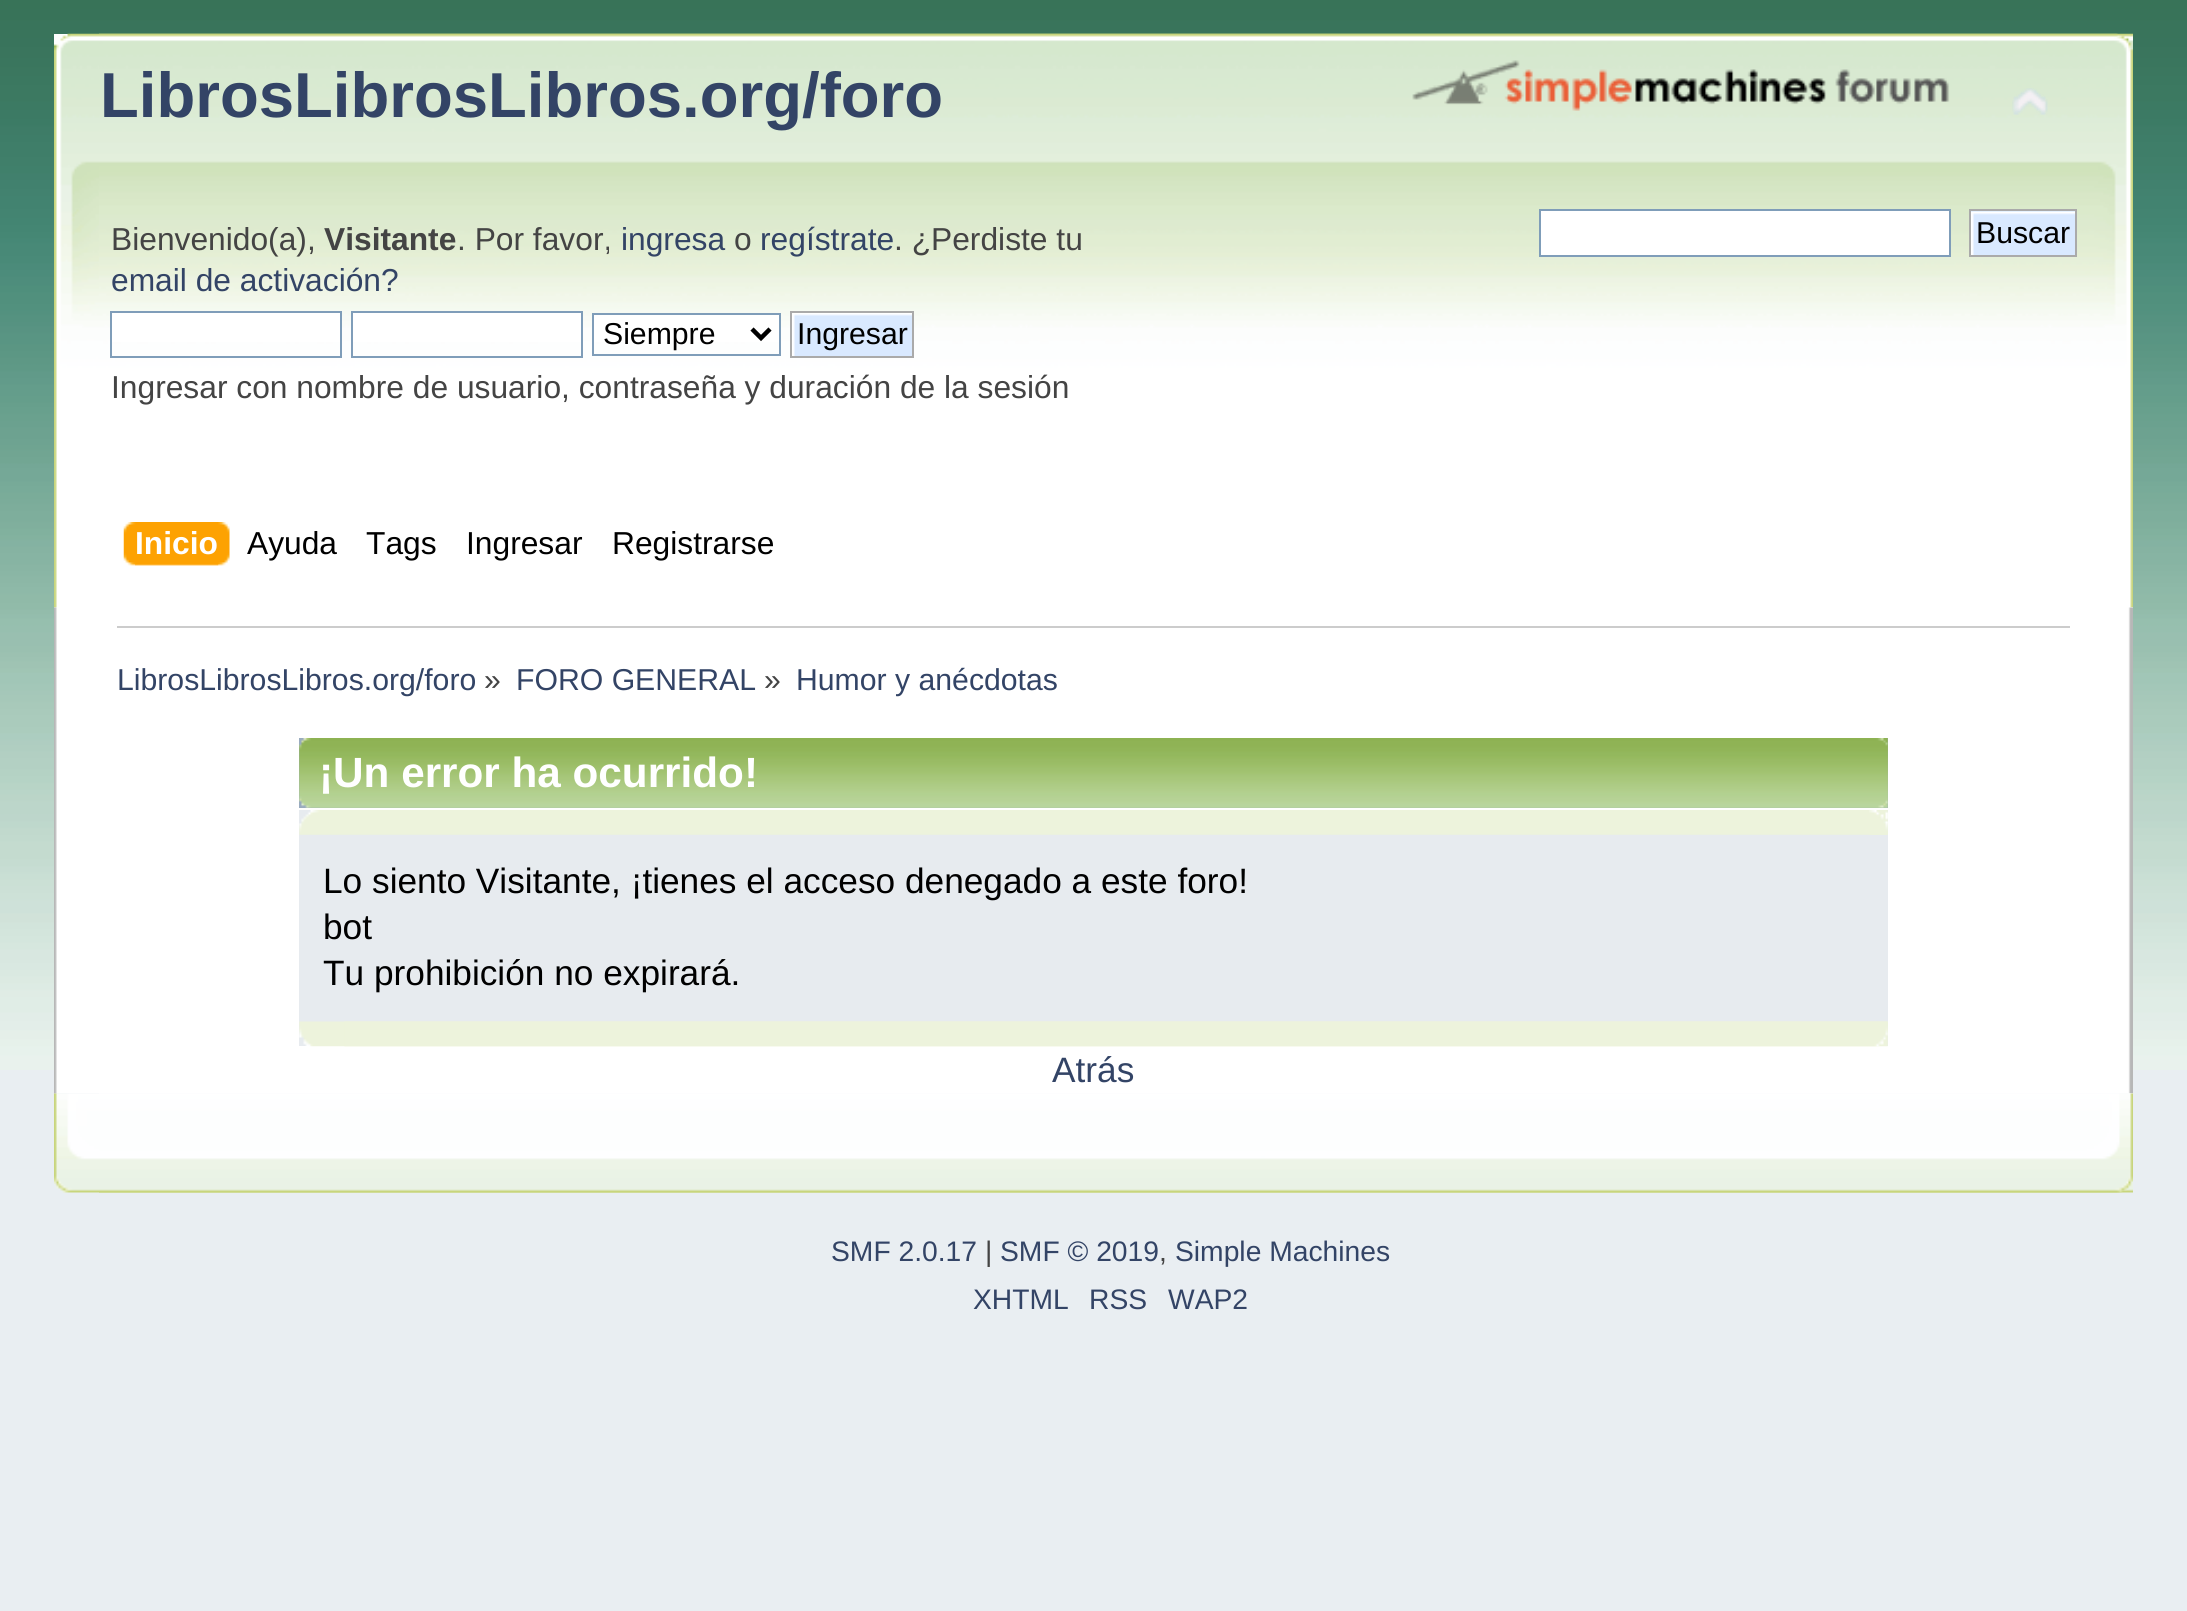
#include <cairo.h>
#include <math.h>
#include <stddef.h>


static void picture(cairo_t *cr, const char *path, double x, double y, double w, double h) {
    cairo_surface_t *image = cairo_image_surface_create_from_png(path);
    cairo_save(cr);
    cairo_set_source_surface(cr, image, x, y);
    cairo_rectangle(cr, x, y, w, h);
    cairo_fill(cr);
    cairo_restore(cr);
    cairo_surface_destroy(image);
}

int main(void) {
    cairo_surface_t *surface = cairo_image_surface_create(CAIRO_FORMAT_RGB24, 2187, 1611);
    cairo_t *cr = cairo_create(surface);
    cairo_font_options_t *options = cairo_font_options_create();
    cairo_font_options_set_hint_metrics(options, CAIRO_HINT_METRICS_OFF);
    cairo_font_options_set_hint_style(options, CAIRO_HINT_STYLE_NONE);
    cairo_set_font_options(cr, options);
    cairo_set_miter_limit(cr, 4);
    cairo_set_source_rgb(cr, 0.914, 0.933, 0.949);
    cairo_paint(cr);
    picture(cr, "img1.png", 0, 0, 2187, 1070);
    cairo_set_source_rgb(cr, 0.996, 0.996, 0.996);
    cairo_rectangle(cr, 54, 34, 2079, 574);
    cairo_fill(cr);
    picture(cr, "img2.png", 54, 33, 2079, 575);
    picture(cr, "img3.png", 99, 33, 2034, 575);
    cairo_select_font_face(cr, "Liberation Sans", CAIRO_FONT_SLANT_NORMAL, CAIRO_FONT_WEIGHT_BOLD);
    cairo_set_font_size(cr, 63.5);
    cairo_set_source_rgb(cr, 0.2, 0.267, 0.4);
    cairo_move_to(cr, 100, 117);
    cairo_show_text(cr, "LibrosLibrosLibros.org/foro");
    picture(cr, "img4.png", 1412, 60, 538, 51);
    picture(cr, "img5.png", 2012, 88, 36, 27);
    cairo_select_font_face(cr, "Liberation Sans", CAIRO_FONT_SLANT_NORMAL, CAIRO_FONT_WEIGHT_NORMAL);
    cairo_set_font_size(cr, 31.75);
    cairo_set_source_rgb(cr, 0.267, 0.267, 0.267);
    cairo_move_to(cr, 111, 250);
    cairo_show_text(cr, "Bienvenido(a),");
    cairo_select_font_face(cr, "Liberation Sans", CAIRO_FONT_SLANT_NORMAL, CAIRO_FONT_WEIGHT_BOLD);
    cairo_move_to(cr, 324, 250);
    cairo_show_text(cr, "Visitante");
    cairo_select_font_face(cr, "Liberation Sans", CAIRO_FONT_SLANT_NORMAL, CAIRO_FONT_WEIGHT_NORMAL);
    cairo_move_to(cr, 457, 250);
    cairo_show_text(cr, ". Por favor,");
    cairo_set_source_rgb(cr, 0.2, 0.267, 0.4);
    cairo_move_to(cr, 621, 250);
    cairo_show_text(cr, "ingresa");
    cairo_set_source_rgb(cr, 0.267, 0.267, 0.267);
    cairo_move_to(cr, 734, 250);
    cairo_show_text(cr, "o");
    cairo_set_source_rgb(cr, 0.2, 0.267, 0.4);
    cairo_move_to(cr, 760, 250);
    cairo_show_text(cr, "regístrate");
    cairo_set_source_rgb(cr, 0.267, 0.267, 0.267);
    cairo_move_to(cr, 894, 250);
    cairo_show_text(cr, ". ¿Perdiste tu");
    cairo_set_source_rgb(cr, 0.2, 0.267, 0.4);
    cairo_move_to(cr, 111, 291);
    cairo_show_text(cr, "email de activación?");
    cairo_set_source_rgb(cr, 1, 1, 1);
    cairo_rectangle(cr, 112, 313, 228, 29);
    cairo_fill(cr);
    cairo_rectangle(cr, 111, 312, 230, 45);
    cairo_set_source_rgb(cr, 0.498, 0.616, 0.725);
    cairo_stroke(cr);
    cairo_set_source_rgb(cr, 1, 1, 1);
    cairo_rectangle(cr, 353, 313, 228, 29);
    cairo_fill(cr);
    cairo_rectangle(cr, 352, 312, 230, 45);
    cairo_set_source_rgb(cr, 0.498, 0.616, 0.725);
    cairo_stroke(cr);
    cairo_set_source_rgb(cr, 1, 1, 1);
    cairo_rectangle(cr, 594, 315, 185, 27);
    cairo_fill(cr);
    cairo_rectangle(cr, 593, 314, 187, 41);
    cairo_set_source_rgb(cr, 0.498, 0.616, 0.725);
    cairo_stroke(cr);
    cairo_new_path(cr);
    cairo_move_to(cr, 752, 329);
    cairo_line_to(cr, 761, 338);
    cairo_line_to(cr, 770, 329);
    cairo_set_source_rgb(cr, 0, 0, 0);
    cairo_set_line_width(cr, 4.5);
    cairo_stroke(cr);
    cairo_set_font_size(cr, 30.2);
    cairo_move_to(cr, 603, 344);
    cairo_show_text(cr, "Siempre");
    picture(cr, "img6.png", 792, 313, 120, 43);
    cairo_rectangle(cr, 791, 312, 122, 45);
    cairo_set_source_rgb(cr, 0.667, 0.667, 0.667);
    cairo_set_line_width(cr, 2);
    cairo_stroke(cr);
    cairo_set_source_rgb(cr, 0, 0, 0);
    cairo_move_to(cr, 797, 344);
    cairo_show_text(cr, "Ingresar");
    cairo_set_font_size(cr, 31.75);
    cairo_set_source_rgb(cr, 0.267, 0.267, 0.267);
    cairo_move_to(cr, 111, 398);
    cairo_show_text(cr, "Ingresar con nombre de usuario, contraseña y duración de la sesión");
    cairo_set_source_rgb(cr, 1, 1, 1);
    cairo_rectangle(cr, 1540, 210, 410, 46);
    cairo_fill_preserve(cr);
    cairo_set_source_rgb(cr, 0.498, 0.616, 0.725);
    cairo_stroke(cr);
    cairo_set_source_rgb(cr, 0.804, 0.906, 1);
    cairo_rectangle(cr, 1971, 211, 104, 1);
    cairo_fill(cr);
    picture(cr, "img7.png", 1971, 211, 104, 44);
    cairo_rectangle(cr, 1970, 210, 106, 46);
    cairo_set_source_rgb(cr, 0.667, 0.667, 0.667);
    cairo_stroke(cr);
    cairo_set_font_size(cr, 30.2);
    cairo_set_source_rgb(cr, 0, 0, 0);
    cairo_move_to(cr, 1976, 243);
    cairo_show_text(cr, "Buscar");
    picture(cr, "img8.png", 135, 522, 95, 44);
    picture(cr, "img9.png", 123, 522, 96, 44);
    cairo_select_font_face(cr, "Liberation Sans", CAIRO_FONT_SLANT_NORMAL, CAIRO_FONT_WEIGHT_BOLD);
    cairo_set_font_size(cr, 31.75);
    cairo_set_source_rgb(cr, 1, 1, 1);
    cairo_move_to(cr, 135, 554);
    cairo_show_text(cr, "Inicio");
    cairo_select_font_face(cr, "Liberation Sans", CAIRO_FONT_SLANT_NORMAL, CAIRO_FONT_WEIGHT_NORMAL);
    cairo_set_source_rgb(cr, 0, 0, 0);
    cairo_move_to(cr, 247, 554);
    cairo_show_text(cr, "Ayuda");
    cairo_move_to(cr, 366, 554);
    cairo_show_text(cr, "Tags");
    cairo_move_to(cr, 466, 554);
    cairo_show_text(cr, "Ingresar");
    cairo_move_to(cr, 612, 554);
    cairo_show_text(cr, "Registrarse");
    picture(cr, "img10.png", 54, 607, 2079, 487);
    picture(cr, "img11.png", 2128, 607, 5, 487);
    cairo_set_source_rgb(cr, 0.8, 0.8, 0.8);
    cairo_rectangle(cr, 117, 626, 1953, 2);
    cairo_fill(cr);
    cairo_set_font_size(cr, 30.2);
    cairo_set_source_rgb(cr, 0.2, 0.267, 0.4);
    cairo_move_to(cr, 117, 690);
    cairo_show_text(cr, "LibrosLibrosLibros.org/foro");
    cairo_set_source_rgb(cr, 0.267, 0.267, 0.267);
    cairo_move_to(cr, 484, 690);
    cairo_show_text(cr, "»");
    cairo_set_source_rgb(cr, 0.2, 0.267, 0.4);
    cairo_move_to(cr, 516, 690);
    cairo_show_text(cr, "FORO GENERAL");
    cairo_set_source_rgb(cr, 0.267, 0.267, 0.267);
    cairo_move_to(cr, 764, 690);
    cairo_show_text(cr, "»");
    cairo_set_source_rgb(cr, 0.2, 0.267, 0.4);
    cairo_move_to(cr, 796, 690);
    cairo_show_text(cr, "Humor y anécdotas");
    cairo_set_source_rgb(cr, 0.6, 0.671, 0.749);
    cairo_rectangle(cr, 299, 738, 1589, 70);
    cairo_fill(cr);
    picture(cr, "img12.png", 299, 738, 1589, 70);
    picture(cr, "img13.png", 320, 738, 1568, 70);
    cairo_select_font_face(cr, "Liberation Sans", CAIRO_FONT_SLANT_NORMAL, CAIRO_FONT_WEIGHT_BOLD);
    cairo_set_font_size(cr, 42.25);
    cairo_set_source_rgb(cr, 1, 1, 1);
    cairo_move_to(cr, 319, 787);
    cairo_show_text(cr, "¡Un error ha ocurrido!");
    cairo_set_source_rgb(cr, 0.906, 0.918, 0.937);
    cairo_rectangle(cr, 299, 810, 1589, 236);
    cairo_fill(cr);
    picture(cr, "img14.png", 299, 810, 1589, 25);
    picture(cr, "img15.png", 1869, 810, 19, 25);
    cairo_select_font_face(cr, "Liberation Sans", CAIRO_FONT_SLANT_NORMAL, CAIRO_FONT_WEIGHT_NORMAL);
    cairo_set_font_size(cr, 35.25);
    cairo_set_source_rgb(cr, 0, 0, 0);
    cairo_move_to(cr, 323, 893);
    cairo_show_text(cr, "Lo siento Visitante, ¡tienes el acceso denegado a este foro!");
    cairo_move_to(cr, 323, 939);
    cairo_show_text(cr, "bot");
    cairo_move_to(cr, 323, 985);
    cairo_show_text(cr, "Tu prohibición no expirará.");
    picture(cr, "img16.png", 299, 1021, 1589, 26);
    picture(cr, "img17.png", 344, 1021, 1544, 26);
    cairo_set_source_rgb(cr, 0.2, 0.267, 0.4);
    cairo_move_to(cr, 1052, 1082);
    cairo_show_text(cr, "Atrás");
    picture(cr, "img18.png", 54, 1093, 2079, 100);
    picture(cr, "img19.png", 99, 1093, 2034, 100);
    cairo_set_font_size(cr, 28.25);
    cairo_move_to(cr, 831, 1261);
    cairo_show_text(cr, "SMF 2.0.17");
    cairo_set_source_rgb(cr, 0.267, 0.267, 0.267);
    cairo_move_to(cr, 985, 1261);
    cairo_show_text(cr, "|");
    cairo_set_source_rgb(cr, 0.2, 0.267, 0.4);
    cairo_move_to(cr, 1000, 1261);
    cairo_show_text(cr, "SMF © 2019");
    cairo_set_source_rgb(cr, 0.267, 0.267, 0.267);
    cairo_move_to(cr, 1159, 1261);
    cairo_show_text(cr, ",");
    cairo_set_source_rgb(cr, 0.2, 0.267, 0.4);
    cairo_move_to(cr, 1175, 1261);
    cairo_show_text(cr, "Simple Machines");
    cairo_move_to(cr, 973, 1309);
    cairo_show_text(cr, "XHTML");
    cairo_move_to(cr, 1089, 1309);
    cairo_show_text(cr, "RSS");
    cairo_move_to(cr, 1168, 1309);
    cairo_show_text(cr, "WAP2");
    cairo_surface_write_to_png(surface, "page.png");
    cairo_font_options_destroy(options);
    cairo_destroy(cr);
    cairo_surface_destroy(surface);
    return 0;
}
